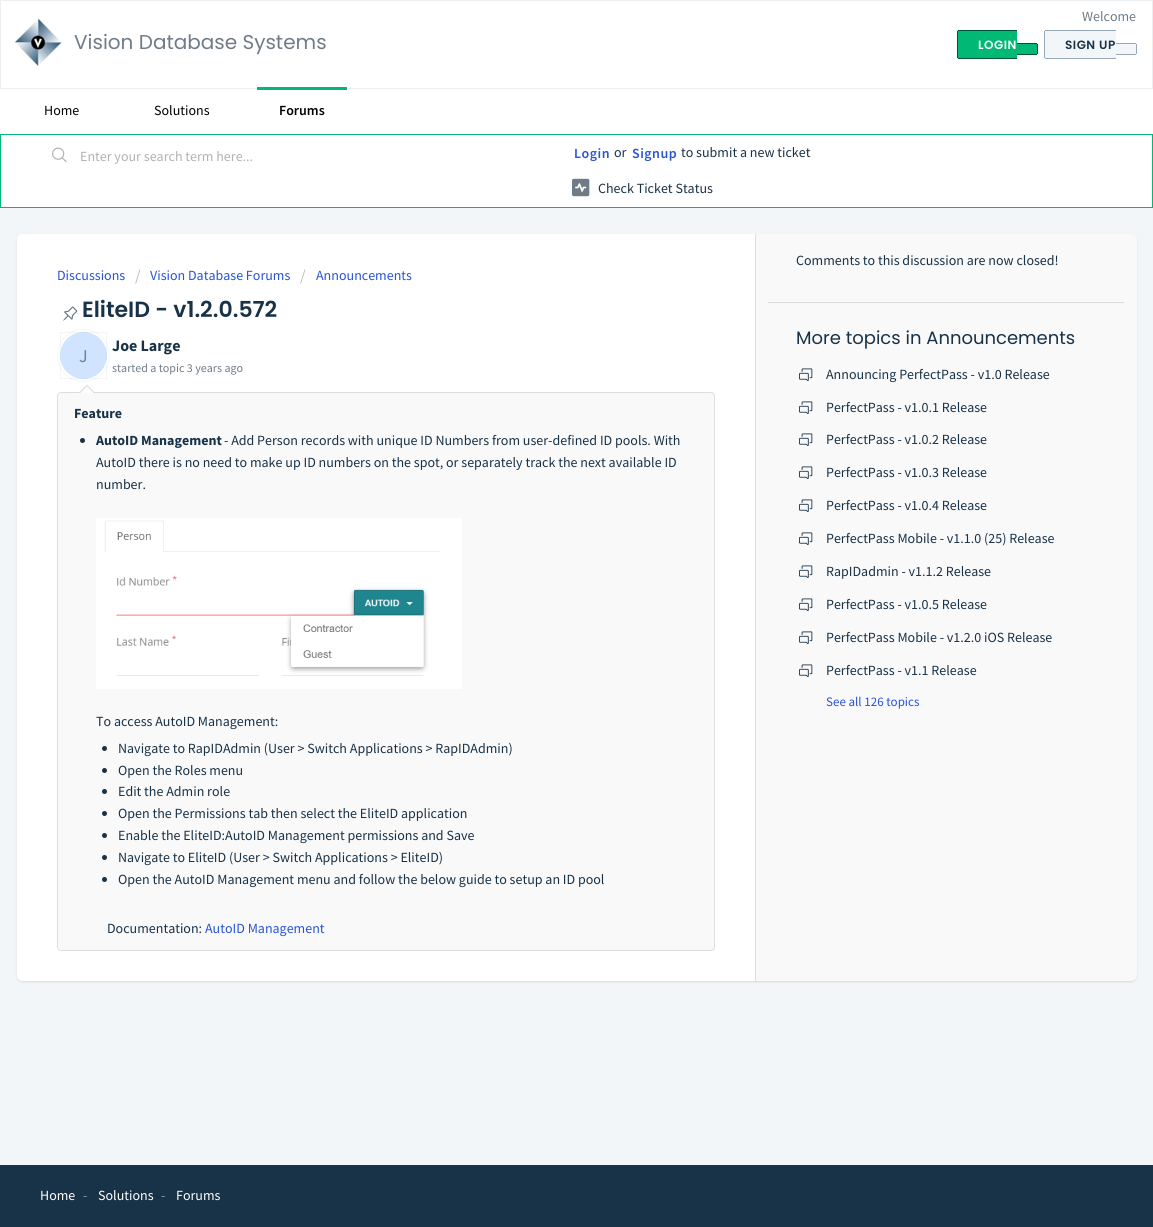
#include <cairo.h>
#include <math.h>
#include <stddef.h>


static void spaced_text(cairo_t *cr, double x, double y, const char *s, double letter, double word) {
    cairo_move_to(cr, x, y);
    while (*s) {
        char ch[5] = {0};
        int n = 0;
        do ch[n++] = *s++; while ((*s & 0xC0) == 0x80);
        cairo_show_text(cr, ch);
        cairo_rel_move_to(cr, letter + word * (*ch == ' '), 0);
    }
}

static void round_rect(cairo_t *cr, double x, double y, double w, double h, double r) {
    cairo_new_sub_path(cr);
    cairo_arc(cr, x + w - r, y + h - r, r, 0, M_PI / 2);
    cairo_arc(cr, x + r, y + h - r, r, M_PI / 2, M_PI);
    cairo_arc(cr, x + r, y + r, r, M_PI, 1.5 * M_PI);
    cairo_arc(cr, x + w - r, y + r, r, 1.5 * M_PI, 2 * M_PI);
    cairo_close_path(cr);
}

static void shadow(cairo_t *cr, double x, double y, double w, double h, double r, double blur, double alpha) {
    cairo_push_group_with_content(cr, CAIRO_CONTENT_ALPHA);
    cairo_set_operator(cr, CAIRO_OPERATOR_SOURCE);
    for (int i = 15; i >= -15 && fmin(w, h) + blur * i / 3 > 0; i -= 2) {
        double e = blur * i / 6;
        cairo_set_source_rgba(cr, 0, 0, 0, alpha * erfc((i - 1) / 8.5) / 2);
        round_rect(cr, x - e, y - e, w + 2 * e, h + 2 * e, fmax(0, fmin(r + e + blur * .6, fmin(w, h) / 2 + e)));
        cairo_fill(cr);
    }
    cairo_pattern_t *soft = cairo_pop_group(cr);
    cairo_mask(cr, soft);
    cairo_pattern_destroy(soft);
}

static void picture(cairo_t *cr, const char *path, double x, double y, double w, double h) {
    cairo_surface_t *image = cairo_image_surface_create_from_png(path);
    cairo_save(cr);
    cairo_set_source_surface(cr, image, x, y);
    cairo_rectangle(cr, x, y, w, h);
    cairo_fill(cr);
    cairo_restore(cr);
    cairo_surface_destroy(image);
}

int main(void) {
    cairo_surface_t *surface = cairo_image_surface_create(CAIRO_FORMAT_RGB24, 1153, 1227);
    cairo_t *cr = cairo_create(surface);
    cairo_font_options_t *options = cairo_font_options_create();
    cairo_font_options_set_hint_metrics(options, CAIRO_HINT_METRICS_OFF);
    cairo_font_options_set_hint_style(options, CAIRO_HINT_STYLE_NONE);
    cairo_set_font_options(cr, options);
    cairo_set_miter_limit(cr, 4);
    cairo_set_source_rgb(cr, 0.953, 0.961, 0.969);
    cairo_paint(cr);
    cairo_set_source_rgb(cr, 1, 1, 1);
    cairo_rectangle(cr, 0.5, 0.5, 1152, 88);
    cairo_fill_preserve(cr);
    cairo_set_source_rgb(cr, 0.922, 0.933, 0.941);
    cairo_set_line_width(cr, 1);
    cairo_stroke(cr);
    picture(cr, "img1.png", 15, 18, 47, 48);
    cairo_select_font_face(cr, "Poppins", CAIRO_FONT_SLANT_NORMAL, CAIRO_FONT_WEIGHT_NORMAL);
    cairo_set_font_size(cr, 20);
    cairo_set_source_rgb(cr, 0.435, 0.486, 0.529);
    cairo_move_to(cr, 74, 49);
    cairo_show_text(cr, "Vision Database Systems");
    cairo_select_font_face(cr, "Source Sans Pro", CAIRO_FONT_SLANT_NORMAL, CAIRO_FONT_WEIGHT_NORMAL);
    cairo_set_font_size(cr, 14);
    cairo_move_to(cr, 1082, 21);
    cairo_show_text(cr, "Welcome");
    cairo_set_source_rgb(cr, 0.008, 0.722, 0.459);
    cairo_new_path(cr);
    cairo_move_to(cr, 959, 30);
    cairo_line_to(cr, 1017, 30);
    cairo_line_to(cr, 1017, 59);
    cairo_line_to(cr, 959, 59);
    cairo_curve_to(cr, 958, 59, 957, 58, 957, 57);
    cairo_line_to(cr, 957, 32);
    cairo_curve_to(cr, 957, 31, 958, 30, 959, 30);
    cairo_close_path(cr);
    cairo_fill(cr);
    cairo_select_font_face(cr, "Poppins SemiBold", CAIRO_FONT_SLANT_NORMAL, CAIRO_FONT_WEIGHT_NORMAL);
    cairo_set_font_size(cr, 12);
    cairo_set_source_rgb(cr, 1, 1, 1);
    spaced_text(cr, 978, 49, "LOGIN", 0.5, 0);
    cairo_set_source_rgb(cr, 0.004, 0.325, 0.208);
    cairo_rectangle(cr, 958, 30, 59, 1);
    cairo_fill(cr);
    cairo_rectangle(cr, 958, 58, 59, 1);
    cairo_fill(cr);
    cairo_rectangle(cr, 957, 31, 1, 27);
    cairo_fill(cr);
    cairo_set_source_rgb(cr, 0.008, 0.722, 0.459);
    cairo_new_path(cr);
    cairo_move_to(cr, 1017, 43);
    cairo_line_to(cr, 1036, 43);
    cairo_curve_to(cr, 1037, 43, 1038, 44, 1038, 45);
    cairo_line_to(cr, 1038, 53);
    cairo_curve_to(cr, 1038, 54, 1037, 55, 1036, 55);
    cairo_line_to(cr, 1017, 55);
    cairo_close_path(cr);
    cairo_fill(cr);
    cairo_set_source_rgb(cr, 0.004, 0.325, 0.208);
    cairo_rectangle(cr, 1017, 43, 20, 1);
    cairo_fill(cr);
    cairo_rectangle(cr, 1037, 44, 1, 10);
    cairo_fill(cr);
    cairo_rectangle(cr, 1017, 54, 20, 1);
    cairo_fill(cr);
    cairo_set_source_rgb(cr, 0.953, 0.961, 0.969);
    cairo_new_path(cr);
    cairo_move_to(cr, 1046, 30);
    cairo_line_to(cr, 1116, 30);
    cairo_line_to(cr, 1116, 59);
    cairo_line_to(cr, 1046, 59);
    cairo_curve_to(cr, 1045, 59, 1044, 58, 1044, 57);
    cairo_line_to(cr, 1044, 32);
    cairo_curve_to(cr, 1044, 31, 1045, 30, 1046, 30);
    cairo_close_path(cr);
    cairo_fill(cr);
    cairo_set_source_rgb(cr, 0.094, 0.196, 0.278);
    spaced_text(cr, 1065, 49, "SIGN UP", 0.5, 0);
    cairo_set_source_rgb(cr, 0.592, 0.663, 0.729);
    cairo_rectangle(cr, 1045, 30, 71, 1);
    cairo_fill(cr);
    cairo_rectangle(cr, 1045, 58, 71, 1);
    cairo_fill(cr);
    cairo_rectangle(cr, 1044, 31, 1, 27);
    cairo_fill(cr);
    cairo_set_source_rgb(cr, 0.953, 0.961, 0.969);
    cairo_new_path(cr);
    cairo_move_to(cr, 1116, 43);
    cairo_line_to(cr, 1135, 43);
    cairo_curve_to(cr, 1136, 43, 1137, 44, 1137, 45);
    cairo_line_to(cr, 1137, 53);
    cairo_curve_to(cr, 1137, 54, 1136, 55, 1135, 55);
    cairo_line_to(cr, 1116, 55);
    cairo_close_path(cr);
    cairo_fill(cr);
    cairo_set_source_rgb(cr, 0.592, 0.663, 0.729);
    cairo_rectangle(cr, 1116, 43, 20, 1);
    cairo_fill(cr);
    cairo_rectangle(cr, 1136, 44, 1, 10);
    cairo_fill(cr);
    cairo_rectangle(cr, 1116, 54, 20, 1);
    cairo_fill(cr);
    cairo_set_source_rgb(cr, 1, 1, 1);
    cairo_rectangle(cr, 0, 89, 1153, 45);
    cairo_fill(cr);
    cairo_select_font_face(cr, "Source Sans Pro", CAIRO_FONT_SLANT_NORMAL, CAIRO_FONT_WEIGHT_NORMAL);
    cairo_set_font_size(cr, 14);
    cairo_set_source_rgb(cr, 0, 0, 0);
    cairo_move_to(cr, 44, 115);
    cairo_show_text(cr, "Home");
    cairo_move_to(cr, 154, 115);
    cairo_show_text(cr, "Solutions");
    cairo_set_source_rgb(cr, 0.008, 0.722, 0.459);
    cairo_rectangle(cr, 257, 87, 90, 3);
    cairo_fill(cr);
    cairo_select_font_face(cr, "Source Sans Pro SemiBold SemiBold", CAIRO_FONT_SLANT_NORMAL, CAIRO_FONT_WEIGHT_NORMAL);
    cairo_set_source_rgb(cr, 0, 0, 0);
    cairo_move_to(cr, 279, 115);
    cairo_show_text(cr, "Forums");
    cairo_set_source_rgb(cr, 1, 1, 1);
    cairo_rectangle(cr, 0.5, 134.5, 1152, 73);
    cairo_fill_preserve(cr);
    cairo_set_source_rgb(cr, 0.008, 0.722, 0.459);
    cairo_stroke(cr);
    picture(cr, "img2.png", 52, 147, 15, 15);
    cairo_select_font_face(cr, "Source Sans Pro", CAIRO_FONT_SLANT_NORMAL, CAIRO_FONT_WEIGHT_NORMAL);
    cairo_set_source_rgb(cr, 0.698, 0.698, 0.698);
    cairo_move_to(cr, 80, 161);
    cairo_show_text(cr, "Enter your search term here...");
    cairo_select_font_face(cr, "Source Sans Pro SemiBold SemiBold", CAIRO_FONT_SLANT_NORMAL, CAIRO_FONT_WEIGHT_NORMAL);
    cairo_set_source_rgb(cr, 0.153, 0.325, 0.843);
    spaced_text(cr, 574, 158, "Login", 0.5, 0);
    cairo_select_font_face(cr, "Source Sans Pro", CAIRO_FONT_SLANT_NORMAL, CAIRO_FONT_WEIGHT_NORMAL);
    cairo_set_source_rgb(cr, 0.094, 0.196, 0.278);
    cairo_move_to(cr, 614, 157);
    cairo_show_text(cr, "or");
    cairo_select_font_face(cr, "Source Sans Pro SemiBold SemiBold", CAIRO_FONT_SLANT_NORMAL, CAIRO_FONT_WEIGHT_NORMAL);
    cairo_set_source_rgb(cr, 0.153, 0.325, 0.843);
    spaced_text(cr, 632, 158, "Signup", 0.5, 0);
    cairo_select_font_face(cr, "Source Sans Pro", CAIRO_FONT_SLANT_NORMAL, CAIRO_FONT_WEIGHT_NORMAL);
    cairo_set_source_rgb(cr, 0.094, 0.196, 0.278);
    cairo_move_to(cr, 681, 157);
    cairo_show_text(cr, "to submit a new ticket");
    picture(cr, "img3.png", 572, 178, 18, 19);
    cairo_move_to(cr, 598, 193);
    cairo_show_text(cr, "Check Ticket Status");
    cairo_set_source_rgb(cr, 0.247, 0.247, 0.267);
    shadow(cr, 17, 235, 1120, 747, 6, 1, 0.15);
    cairo_set_source_rgb(cr, 0.973, 0.976, 0.98);
    round_rect(cr, 17, 234, 1120, 747, 6);
    cairo_fill(cr);
    cairo_set_source_rgb(cr, 1, 1, 1);
    cairo_new_path(cr);
    cairo_move_to(cr, 23, 234);
    cairo_line_to(cr, 756, 234);
    cairo_line_to(cr, 756, 981);
    cairo_line_to(cr, 23, 981);
    cairo_curve_to(cr, 19.5, 981, 17, 978.5, 17, 975);
    cairo_line_to(cr, 17, 240);
    cairo_curve_to(cr, 17, 236.5, 19.5, 234, 23, 234);
    cairo_close_path(cr);
    cairo_fill(cr);
    cairo_set_source_rgb(cr, 0.855, 0.875, 0.89);
    cairo_rectangle(cr, 755, 234, 1, 747);
    cairo_fill(cr);
    cairo_set_source_rgb(cr, 0.153, 0.325, 0.843);
    cairo_move_to(cr, 57, 280);
    cairo_show_text(cr, "Discussions");
    cairo_set_font_size(cr, 16);
    cairo_set_source_rgb(cr, 0.733, 0.733, 0.733);
    cairo_move_to(cr, 135, 281);
    cairo_show_text(cr, "/");
    cairo_set_font_size(cr, 14);
    cairo_set_source_rgb(cr, 0.153, 0.325, 0.843);
    cairo_move_to(cr, 150, 280);
    cairo_show_text(cr, "Vision Database Forums");
    cairo_set_font_size(cr, 16);
    cairo_set_source_rgb(cr, 0.733, 0.733, 0.733);
    cairo_move_to(cr, 300, 281);
    cairo_show_text(cr, "/");
    cairo_set_font_size(cr, 14);
    cairo_set_source_rgb(cr, 0.153, 0.325, 0.843);
    cairo_move_to(cr, 316, 280);
    cairo_show_text(cr, "Announcements");
    picture(cr, "img4.png", 63, 306, 15, 15);
    cairo_select_font_face(cr, "Poppins SemiBold", CAIRO_FONT_SLANT_NORMAL, CAIRO_FONT_WEIGHT_NORMAL);
    cairo_set_font_size(cr, 22);
    cairo_set_source_rgb(cr, 0.094, 0.196, 0.278);
    cairo_move_to(cr, 82, 317);
    cairo_show_text(cr, "EliteID - v1.2.0.572");
    cairo_new_path(cr);
    cairo_arc(cr, 83.5, 355.5, 26, 0, 2 * M_PI);
    cairo_set_source_rgb(cr, 0.953, 0.961, 0.969);
    cairo_stroke(cr);
    cairo_set_source_rgb(cr, 0.82, 0.894, 1);
    cairo_arc(cr, 83.5, 355.5, 23.5, 0, 2 * M_PI);
    cairo_fill(cr);
    cairo_rectangle(cr, 60.5, 332.5, 46, 46);
    cairo_set_source_rgba(cr, 0, 0, 0, 0.04);
    cairo_stroke(cr);
    cairo_select_font_face(cr, "Source Sans Pro", CAIRO_FONT_SLANT_NORMAL, CAIRO_FONT_WEIGHT_NORMAL);
    cairo_set_font_size(cr, 18);
    cairo_set_source_rgb(cr, 0.388, 0.525, 0.6);
    cairo_move_to(cr, 79, 362);
    cairo_show_text(cr, "J");
    cairo_set_source_rgb(cr, 0.973, 0.976, 0.98);
    round_rect(cr, 57.5, 392.5, 657, 558, 3.5);
    cairo_fill_preserve(cr);
    cairo_set_source_rgb(cr, 0.855, 0.875, 0.89);
    cairo_stroke(cr);
    cairo_set_source_rgb(cr, 0.8, 0.8, 0.8);
    cairo_new_path(cr);
    cairo_move_to(cr, 95, 393);
    cairo_line_to(cr, 79, 393);
    cairo_line_to(cr, 87, 385);
    cairo_close_path(cr);
    cairo_fill(cr);
    cairo_set_source_rgb(cr, 1, 0.992, 0.973);
    cairo_new_path(cr);
    cairo_move_to(cr, 94, 393);
    cairo_line_to(cr, 80, 393);
    cairo_line_to(cr, 87, 386);
    cairo_close_path(cr);
    cairo_fill(cr);
    cairo_select_font_face(cr, "Source Sans Pro", CAIRO_FONT_SLANT_NORMAL, CAIRO_FONT_WEIGHT_BOLD);
    cairo_set_font_size(cr, 16);
    cairo_set_source_rgb(cr, 0.094, 0.196, 0.278);
    cairo_move_to(cr, 112, 351);
    cairo_show_text(cr, "Joe Large");
    cairo_select_font_face(cr, "Source Sans Pro", CAIRO_FONT_SLANT_NORMAL, CAIRO_FONT_WEIGHT_NORMAL);
    cairo_set_font_size(cr, 12);
    cairo_set_source_rgb(cr, 0.435, 0.486, 0.529);
    cairo_move_to(cr, 112, 372);
    cairo_show_text(cr, "started a topic 3 years ago");
    cairo_select_font_face(cr, "Source Sans Pro", CAIRO_FONT_SLANT_NORMAL, CAIRO_FONT_WEIGHT_BOLD);
    cairo_set_font_size(cr, 14);
    cairo_set_source_rgb(cr, 0.094, 0.196, 0.278);
    cairo_move_to(cr, 74, 418);
    cairo_show_text(cr, "Feature");
    cairo_new_path(cr);
    cairo_arc(cr, 82.5, 440.5, 2.5, 0, 2 * M_PI);
    cairo_fill(cr);
    cairo_move_to(cr, 96, 445);
    cairo_show_text(cr, "AutoID Management");
    cairo_select_font_face(cr, "Source Sans Pro", CAIRO_FONT_SLANT_NORMAL, CAIRO_FONT_WEIGHT_NORMAL);
    cairo_move_to(cr, 224, 445);
    cairo_show_text(cr, "- Add Person records with unique ID Numbers from user-defined ID pools. With");
    cairo_move_to(cr, 96, 467);
    cairo_show_text(cr, "AutoID there is no need to make up ID numbers on the spot, or separately track the next available ID");
    cairo_move_to(cr, 96, 489);
    cairo_show_text(cr, "number.");
    picture(cr, "img5.png", 96, 518, 366, 171);
    cairo_move_to(cr, 96, 726);
    cairo_show_text(cr, "To access AutoID Management:");
    cairo_new_path(cr);
    cairo_arc(cr, 104.5, 748.5, 2.5, 0, 2 * M_PI);
    cairo_fill(cr);
    cairo_move_to(cr, 118, 753);
    cairo_show_text(cr, "Navigate to RapIDAdmin (User > Switch Applications > RapIDAdmin)");
    cairo_new_path(cr);
    cairo_arc(cr, 104.5, 770.5, 2.5, 0, 2 * M_PI);
    cairo_fill(cr);
    cairo_move_to(cr, 118, 775);
    cairo_show_text(cr, "Open the Roles menu");
    cairo_new_path(cr);
    cairo_arc(cr, 104.5, 791.5, 2.5, 0, 2 * M_PI);
    cairo_fill(cr);
    cairo_move_to(cr, 118, 796);
    cairo_show_text(cr, "Edit the Admin role");
    cairo_new_path(cr);
    cairo_arc(cr, 104.5, 813.5, 2.5, 0, 2 * M_PI);
    cairo_fill(cr);
    cairo_move_to(cr, 118, 818);
    cairo_show_text(cr, "Open the Permissions tab then select the EliteID application");
    cairo_new_path(cr);
    cairo_arc(cr, 104.5, 835.5, 2.5, 0, 2 * M_PI);
    cairo_fill(cr);
    cairo_move_to(cr, 118, 840);
    cairo_show_text(cr, "Enable the EliteID:AutoID Management permissions and Save");
    cairo_new_path(cr);
    cairo_arc(cr, 104.5, 857.5, 2.5, 0, 2 * M_PI);
    cairo_fill(cr);
    cairo_move_to(cr, 118, 862);
    cairo_show_text(cr, "Navigate to EliteID (User > Switch Applications > EliteID)");
    cairo_new_path(cr);
    cairo_arc(cr, 104.5, 879.5, 2.5, 0, 2 * M_PI);
    cairo_fill(cr);
    cairo_move_to(cr, 118, 884);
    cairo_show_text(cr, "Open the AutoID Management menu and follow the below guide to setup an ID pool");
    cairo_move_to(cr, 107, 933);
    cairo_show_text(cr, "Documentation:");
    cairo_set_source_rgb(cr, 0.153, 0.325, 0.843);
    cairo_move_to(cr, 205, 933);
    cairo_show_text(cr, "AutoID Management");
    cairo_set_source_rgb(cr, 0.094, 0.196, 0.278);
    cairo_move_to(cr, 796, 265);
    cairo_show_text(cr, "Comments to this discussion are now closed!");
    cairo_set_source_rgb(cr, 0.863, 0.863, 0.863);
    cairo_rectangle(cr, 768, 302, 356, 1);
    cairo_fill(cr);
    cairo_set_source_rgb(cr, 0.965, 0.965, 0.965);
    cairo_rectangle(cr, 768, 303, 356, 1);
    cairo_fill(cr);
    cairo_select_font_face(cr, "Poppins", CAIRO_FONT_SLANT_NORMAL, CAIRO_FONT_WEIGHT_NORMAL);
    cairo_set_font_size(cr, 18);
    cairo_set_source_rgb(cr, 0.094, 0.196, 0.278);
    cairo_move_to(cr, 796, 344);
    cairo_show_text(cr, "More topics in Announcements");
    picture(cr, "img6.png", 799, 368, 14, 13);
    cairo_select_font_face(cr, "Source Sans Pro", CAIRO_FONT_SLANT_NORMAL, CAIRO_FONT_WEIGHT_NORMAL);
    cairo_set_font_size(cr, 14);
    cairo_move_to(cr, 826, 379);
    cairo_show_text(cr, "Announcing PerfectPass - v1.0 Release");
    picture(cr, "img6.png", 799, 401, 14, 13);
    cairo_move_to(cr, 826, 412);
    cairo_show_text(cr, "PerfectPass - v1.0.1 Release");
    picture(cr, "img6.png", 799, 433, 14, 13);
    cairo_move_to(cr, 826, 444);
    cairo_show_text(cr, "PerfectPass - v1.0.2 Release");
    picture(cr, "img6.png", 799, 466, 14, 13);
    cairo_move_to(cr, 826, 477);
    cairo_show_text(cr, "PerfectPass - v1.0.3 Release");
    picture(cr, "img6.png", 799, 499, 14, 13);
    cairo_move_to(cr, 826, 510);
    cairo_show_text(cr, "PerfectPass - v1.0.4 Release");
    picture(cr, "img6.png", 799, 532, 14, 13);
    cairo_move_to(cr, 826, 543);
    cairo_show_text(cr, "PerfectPass Mobile - v1.1.0 (25) Release");
    picture(cr, "img6.png", 799, 565, 14, 13);
    cairo_move_to(cr, 826, 576);
    cairo_show_text(cr, "RapIDadmin - v1.1.2 Release");
    picture(cr, "img6.png", 799, 598, 14, 13);
    cairo_move_to(cr, 826, 609);
    cairo_show_text(cr, "PerfectPass - v1.0.5 Release");
    picture(cr, "img6.png", 799, 631, 14, 13);
    cairo_move_to(cr, 826, 642);
    cairo_show_text(cr, "PerfectPass Mobile - v1.2.0 iOS Release");
    picture(cr, "img6.png", 799, 664, 14, 13);
    cairo_move_to(cr, 826, 675);
    cairo_show_text(cr, "PerfectPass - v1.1 Release");
    cairo_set_font_size(cr, 13);
    cairo_set_source_rgb(cr, 0.153, 0.325, 0.843);
    cairo_move_to(cr, 826, 706);
    cairo_show_text(cr, "See all 126 topics");
    cairo_set_source_rgb(cr, 0.094, 0.196, 0.278);
    cairo_rectangle(cr, 0, 1165, 1153, 62);
    cairo_fill(cr);
    cairo_set_font_size(cr, 14);
    cairo_set_source_rgb(cr, 1, 1, 1);
    cairo_move_to(cr, 40, 1200);
    cairo_show_text(cr, "Home");
    cairo_set_source_rgb(cr, 0.549, 0.6, 0.639);
    cairo_move_to(cr, 83, 1200);
    cairo_show_text(cr, "-");
    cairo_set_source_rgb(cr, 1, 1, 1);
    cairo_move_to(cr, 98, 1200);
    cairo_show_text(cr, "Solutions");
    cairo_set_source_rgb(cr, 0.549, 0.6, 0.639);
    cairo_move_to(cr, 161, 1200);
    cairo_show_text(cr, "-");
    cairo_set_source_rgb(cr, 1, 1, 1);
    cairo_move_to(cr, 176, 1200);
    cairo_show_text(cr, "Forums");
    cairo_surface_write_to_png(surface, "page.png");
    cairo_font_options_destroy(options);
    cairo_destroy(cr);
    cairo_surface_destroy(surface);
    return 0;
}
